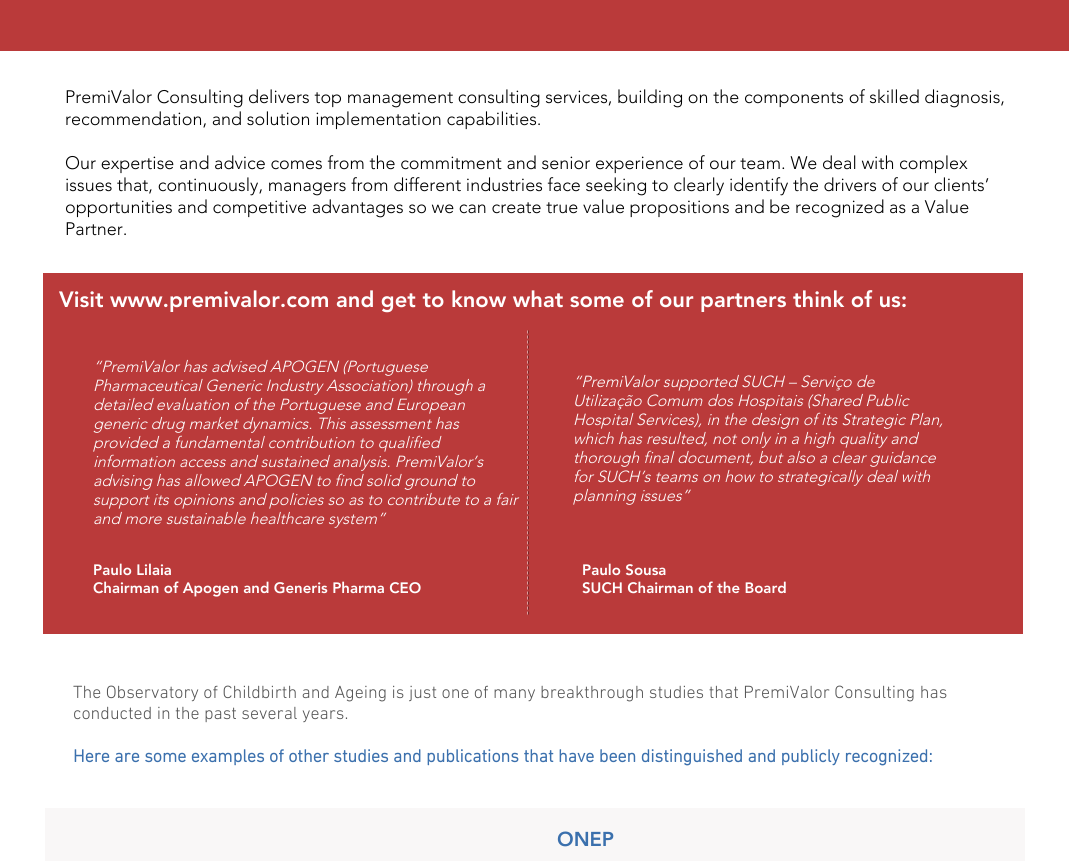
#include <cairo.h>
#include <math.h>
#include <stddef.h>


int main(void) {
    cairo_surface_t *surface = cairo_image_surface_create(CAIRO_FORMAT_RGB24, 1069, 861);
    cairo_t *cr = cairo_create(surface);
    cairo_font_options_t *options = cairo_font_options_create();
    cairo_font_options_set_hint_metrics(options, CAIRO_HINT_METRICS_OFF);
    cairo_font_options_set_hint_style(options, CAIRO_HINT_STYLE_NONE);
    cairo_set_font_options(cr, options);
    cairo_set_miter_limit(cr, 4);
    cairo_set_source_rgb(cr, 1, 1, 1);
    cairo_paint(cr);
    cairo_set_source_rgb(cr, 0.729, 0.227, 0.227);
    cairo_rectangle(cr, 0, 0, 1069, 51);
    cairo_fill(cr);
    cairo_select_font_face(cr, "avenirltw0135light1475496 Light", CAIRO_FONT_SLANT_NORMAL, CAIRO_FONT_WEIGHT_NORMAL);
    cairo_set_font_size(cr, 18);
    cairo_set_source_rgb(cr, 0, 0, 0);
    cairo_move_to(cr, 65, 103);
    cairo_show_text(cr, "PremiValor Consulting delivers top management consulting services, building on the components of skilled diagnosis,");
    cairo_move_to(cr, 65, 125);
    cairo_show_text(cr, "recommendation, and solution implementation capabilities.");
    cairo_move_to(cr, 65, 169);
    cairo_show_text(cr, "Our expertise and advice comes from the commitment and senior experience of our team. We deal with complex");
    cairo_move_to(cr, 65, 191);
    cairo_show_text(cr, "issues that, continuously, managers from different industries face seeking to clearly identify the drivers of our clients’");
    cairo_move_to(cr, 65, 213);
    cairo_show_text(cr, "opportunities and competitive advantages so we can create true value propositions and be recognized as a Value");
    cairo_move_to(cr, 65, 235);
    cairo_show_text(cr, "Partner.");
    cairo_set_source_rgb(cr, 0.729, 0.227, 0.227);
    cairo_rectangle(cr, 43, 273, 980, 361);
    cairo_fill(cr);
    cairo_select_font_face(cr, "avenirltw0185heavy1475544 Black", CAIRO_FONT_SLANT_NORMAL, CAIRO_FONT_WEIGHT_NORMAL);
    cairo_set_font_size(cr, 22);
    cairo_set_source_rgb(cr, 1, 1, 1);
    cairo_move_to(cr, 59, 307);
    cairo_show_text(cr, "Visit www.premivalor.com and get to know what some of our partners think of us:");
    cairo_select_font_face(cr, "avenirltw0135light1475496 Light", CAIRO_FONT_SLANT_ITALIC, CAIRO_FONT_WEIGHT_NORMAL);
    cairo_set_font_size(cr, 16);
    cairo_move_to(cr, 93, 372);
    cairo_show_text(cr, "“PremiValor has advised APOGEN (Portuguese");
    cairo_move_to(cr, 93, 391);
    cairo_show_text(cr, "Pharmaceutical Generic Industry Association) through a");
    cairo_move_to(cr, 93, 410);
    cairo_show_text(cr, "detailed evaluation of the Portuguese and European");
    cairo_move_to(cr, 93, 429);
    cairo_show_text(cr, "generic drug market dynamics. This assessment has");
    cairo_move_to(cr, 93, 448);
    cairo_show_text(cr, "provided a fundamental contribution to qualified");
    cairo_move_to(cr, 93, 467);
    cairo_show_text(cr, "information access and sustained analysis. PremiValor’s");
    cairo_move_to(cr, 93, 486);
    cairo_show_text(cr, "advising has allowed APOGEN to find solid ground to");
    cairo_move_to(cr, 93, 505);
    cairo_show_text(cr, "support its opinions and policies so as to contribute to a fair");
    cairo_move_to(cr, 93, 524);
    cairo_show_text(cr, "and more sustainable healthcare system”");
    cairo_new_path(cr);
    cairo_move_to(cr, 528.5, 330.5);
    cairo_line_to(cr, 528.5, 614.5);
    cairo_set_source_rgb(cr, 0.475, 0.149, 0.149);
    cairo_set_line_width(cr, 1);
    cairo_set_dash(cr, (double[]){3, 2.02}, 2, 0);
    cairo_stroke(cr);
    cairo_new_path(cr);
    cairo_move_to(cr, 527.5, 330.5);
    cairo_line_to(cr, 527.5, 614.5);
    cairo_set_source_rgb(cr, 0.867, 0.616, 0.616);
    cairo_stroke(cr);
    cairo_set_source_rgb(cr, 1, 1, 1);
    cairo_move_to(cr, 573, 387);
    cairo_show_text(cr, "“PremiValor supported SUCH – Serviço de");
    cairo_move_to(cr, 573, 406);
    cairo_show_text(cr, "Utilização Comum dos Hospitais (Shared Public");
    cairo_move_to(cr, 573, 425);
    cairo_show_text(cr, "Hospital Services), in the design of its Strategic Plan,");
    cairo_move_to(cr, 573, 444);
    cairo_show_text(cr, "which has resulted, not only in a high quality and");
    cairo_move_to(cr, 573, 463);
    cairo_show_text(cr, "thorough final document, but also a clear guidance");
    cairo_move_to(cr, 573, 482);
    cairo_show_text(cr, "for SUCH’s teams on how to strategically deal with");
    cairo_move_to(cr, 573, 501);
    cairo_show_text(cr, "planning issues”");
    cairo_select_font_face(cr, "avenirltw0185heavy1475544 Black", CAIRO_FONT_SLANT_NORMAL, CAIRO_FONT_WEIGHT_NORMAL);
    cairo_set_font_size(cr, 15);
    cairo_move_to(cr, 93, 575);
    cairo_show_text(cr, "Paulo Lilaia");
    cairo_move_to(cr, 93, 593);
    cairo_show_text(cr, "Chairman of Apogen and Generis Pharma CEO");
    cairo_move_to(cr, 582, 575);
    cairo_show_text(cr, "Paulo Sousa");
    cairo_move_to(cr, 582, 593);
    cairo_show_text(cr, "SUCH Chairman of the Board");
    cairo_select_font_face(cr, "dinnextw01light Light", CAIRO_FONT_SLANT_NORMAL, CAIRO_FONT_WEIGHT_NORMAL);
    cairo_set_font_size(cr, 18);
    cairo_set_source_rgb(cr, 0.333, 0.333, 0.333);
    cairo_move_to(cr, 73, 698);
    cairo_show_text(cr, "The Observatory of Childbirth and Ageing is just one of many breakthrough studies that PremiValor Consulting has");
    cairo_move_to(cr, 73, 719);
    cairo_show_text(cr, "conducted in the past several years.");
    cairo_select_font_face(cr, "dinnextw01light", CAIRO_FONT_SLANT_NORMAL, CAIRO_FONT_WEIGHT_BOLD);
    cairo_set_source_rgb(cr, 0.231, 0.439, 0.678);
    cairo_move_to(cr, 73, 762);
    cairo_show_text(cr, "Here are some examples of other studies and publications that have been distinguished and publicly recognized:");
    cairo_set_source_rgb(cr, 0.973, 0.965, 0.965);
    cairo_rectangle(cr, 45, 808, 980, 53);
    cairo_fill(cr);
    cairo_select_font_face(cr, "avenirltw0185heavy1475544 Black", CAIRO_FONT_SLANT_NORMAL, CAIRO_FONT_WEIGHT_NORMAL);
    cairo_set_font_size(cr, 20);
    cairo_set_source_rgb(cr, 0.231, 0.439, 0.678);
    cairo_move_to(cr, 557, 846);
    cairo_show_text(cr, "ONEP");
    cairo_surface_write_to_png(surface, "page.png");
    cairo_font_options_destroy(options);
    cairo_destroy(cr);
    cairo_surface_destroy(surface);
    return 0;
}
